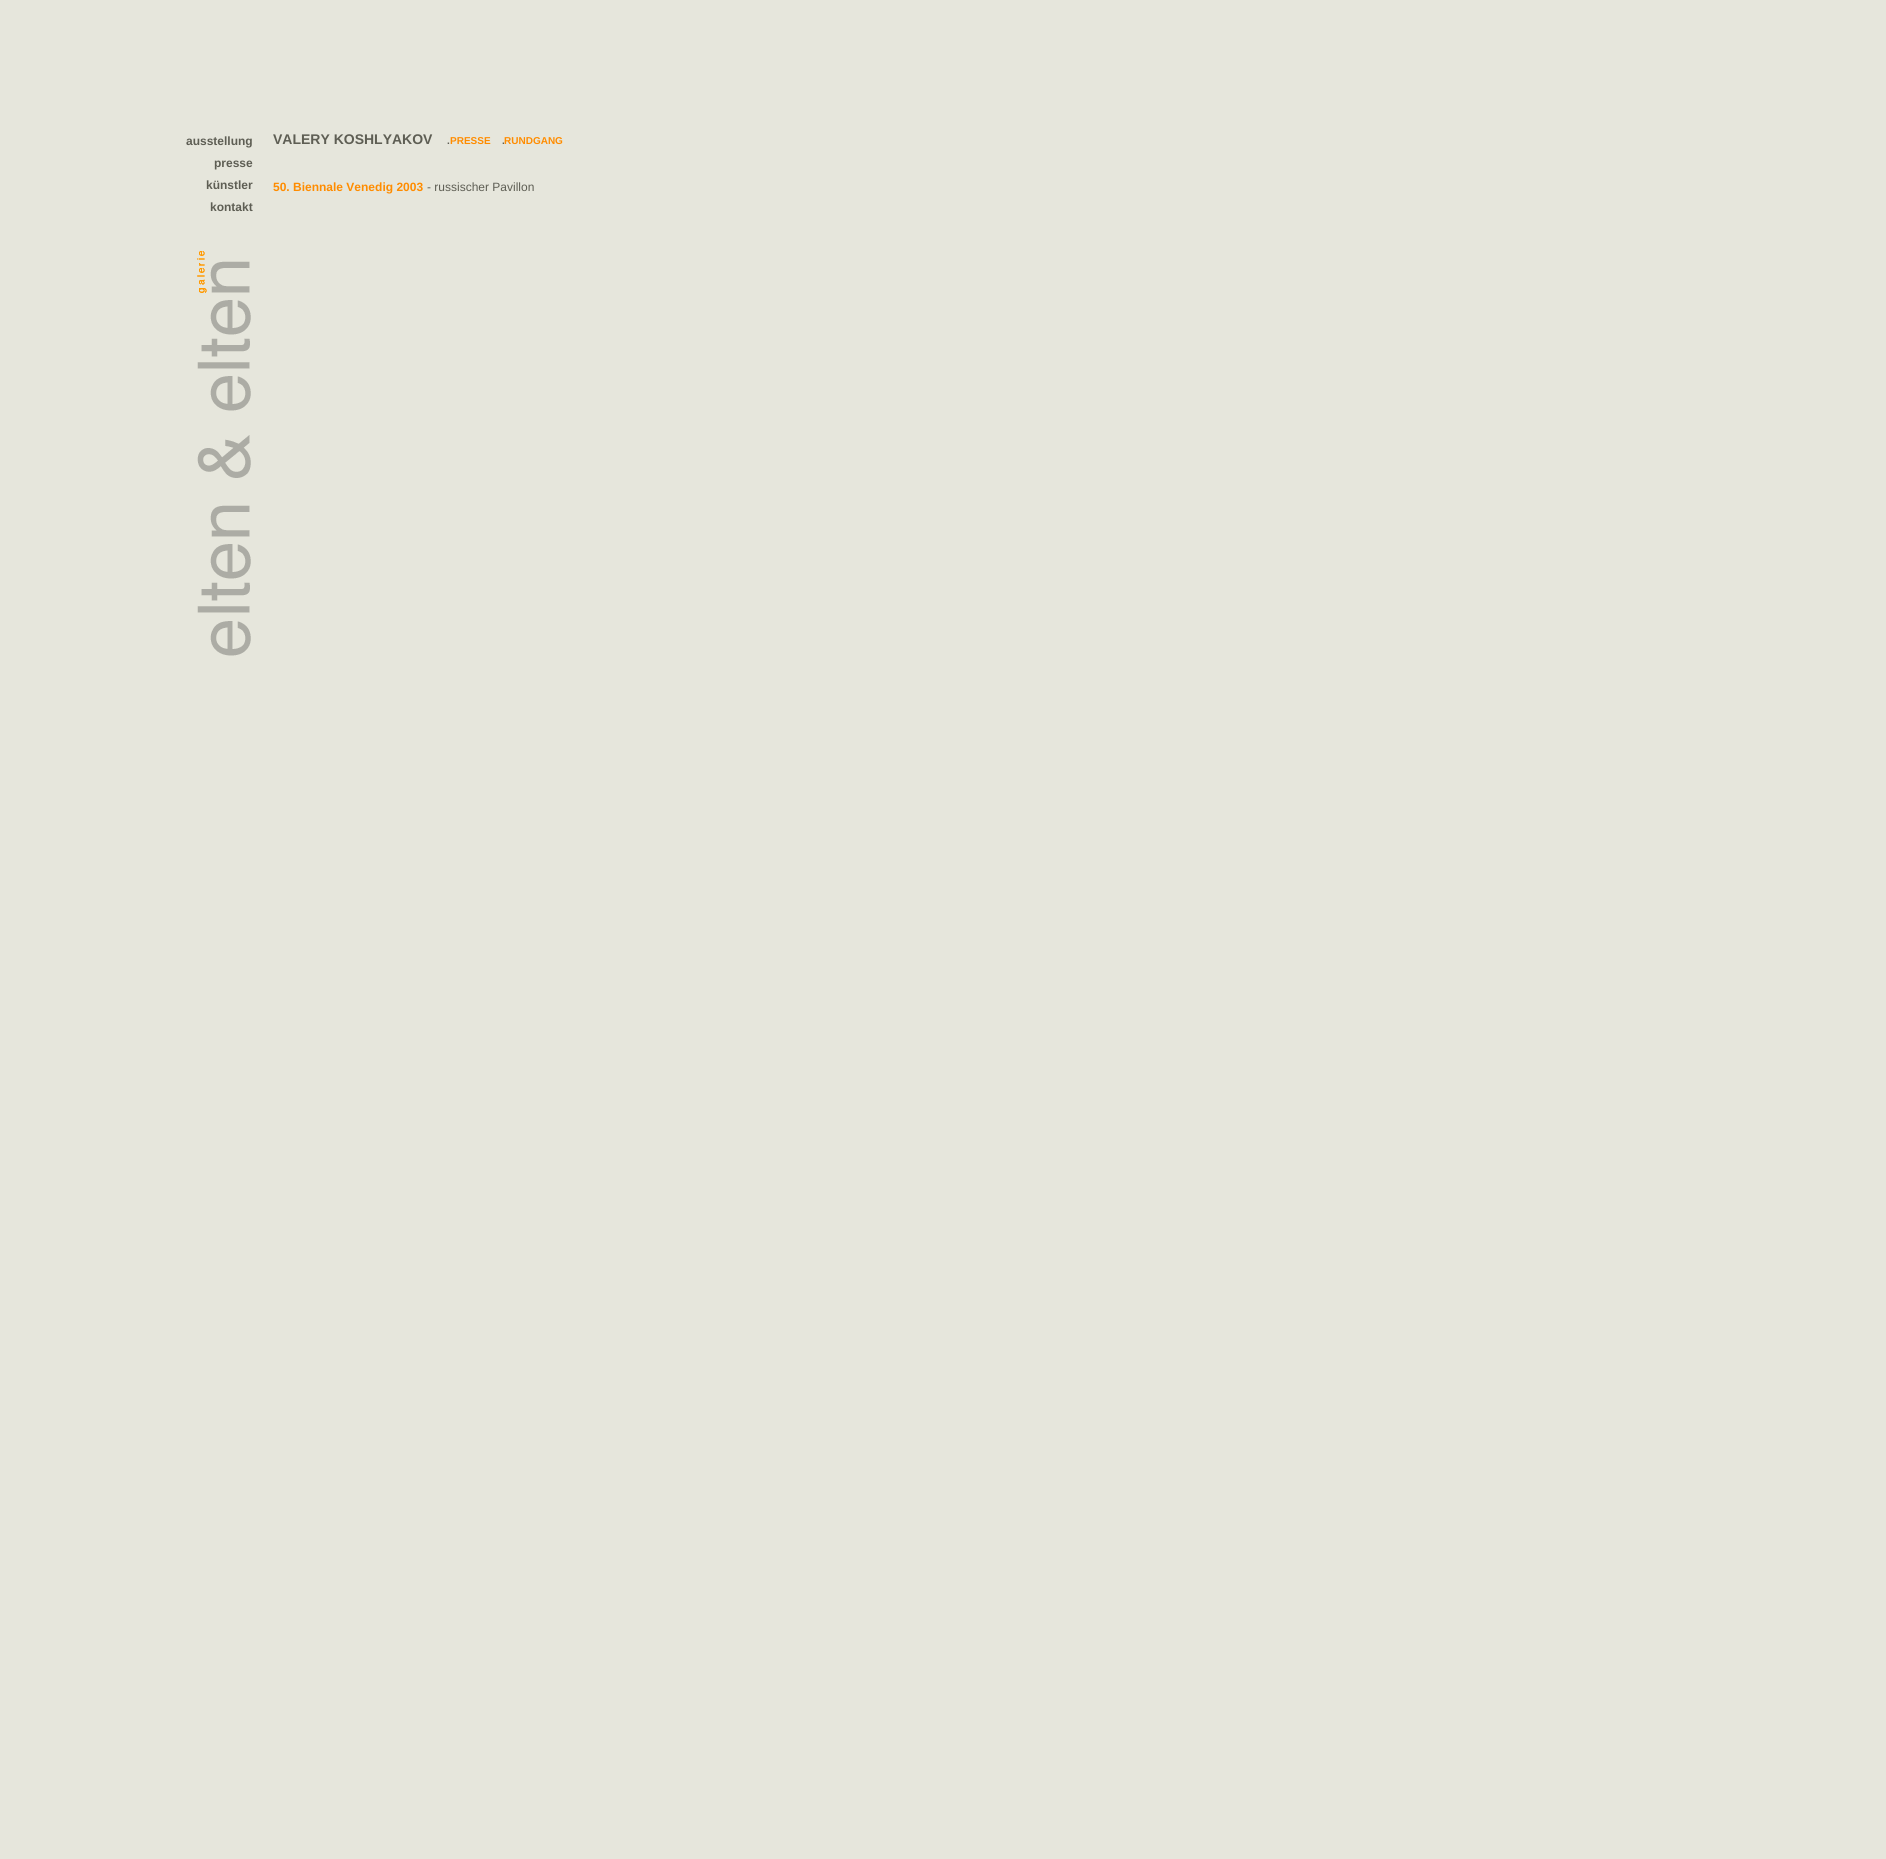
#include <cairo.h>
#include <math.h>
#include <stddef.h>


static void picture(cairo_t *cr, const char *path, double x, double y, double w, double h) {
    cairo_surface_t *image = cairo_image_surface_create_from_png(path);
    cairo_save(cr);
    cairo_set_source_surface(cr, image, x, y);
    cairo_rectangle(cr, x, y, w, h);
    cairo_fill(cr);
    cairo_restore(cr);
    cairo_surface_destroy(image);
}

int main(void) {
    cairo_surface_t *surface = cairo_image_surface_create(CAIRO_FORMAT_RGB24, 1886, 1859);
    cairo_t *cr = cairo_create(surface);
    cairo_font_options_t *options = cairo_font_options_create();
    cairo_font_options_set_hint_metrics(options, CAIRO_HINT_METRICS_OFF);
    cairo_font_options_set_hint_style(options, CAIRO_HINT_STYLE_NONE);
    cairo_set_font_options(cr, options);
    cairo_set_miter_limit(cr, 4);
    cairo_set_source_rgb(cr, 0.902, 0.902, 0.863);
    cairo_paint(cr);
    cairo_select_font_face(cr, "Liberation Sans", CAIRO_FONT_SLANT_NORMAL, CAIRO_FONT_WEIGHT_BOLD);
    cairo_set_font_size(cr, 12);
    cairo_set_source_rgb(cr, 0.369, 0.369, 0.329);
    cairo_move_to(cr, 186, 145);
    cairo_show_text(cr, "ausstellung");
    cairo_move_to(cr, 214, 167);
    cairo_show_text(cr, "presse");
    cairo_move_to(cr, 206, 189);
    cairo_show_text(cr, "künstler");
    cairo_move_to(cr, 210, 211);
    cairo_show_text(cr, "kontakt");
    picture(cr, "img1.png", 197, 251, 54, 405);
    cairo_set_font_size(cr, 14);
    cairo_move_to(cr, 273, 144);
    cairo_show_text(cr, "VALERY KOSHLYAKOV");
    cairo_set_font_size(cr, 10);
    cairo_move_to(cr, 447, 144);
    cairo_show_text(cr, ".");
    cairo_set_source_rgb(cr, 1, 0.549, 0);
    cairo_move_to(cr, 450, 144);
    cairo_show_text(cr, "PRESSE");
    cairo_set_source_rgb(cr, 0.369, 0.369, 0.329);
    cairo_move_to(cr, 502, 144);
    cairo_show_text(cr, ".");
    cairo_set_source_rgb(cr, 1, 0.549, 0);
    cairo_move_to(cr, 504, 144);
    cairo_show_text(cr, "RUNDGANG");
    cairo_set_font_size(cr, 12);
    cairo_move_to(cr, 273, 191);
    cairo_show_text(cr, "50. Biennale Venedig 2003");
    cairo_select_font_face(cr, "Liberation Sans", CAIRO_FONT_SLANT_NORMAL, CAIRO_FONT_WEIGHT_NORMAL);
    cairo_set_source_rgb(cr, 0.369, 0.369, 0.329);
    cairo_move_to(cr, 427, 191);
    cairo_show_text(cr, "- russischer Pavillon");
    cairo_surface_write_to_png(surface, "page.png");
    cairo_font_options_destroy(options);
    cairo_destroy(cr);
    cairo_surface_destroy(surface);
    return 0;
}
